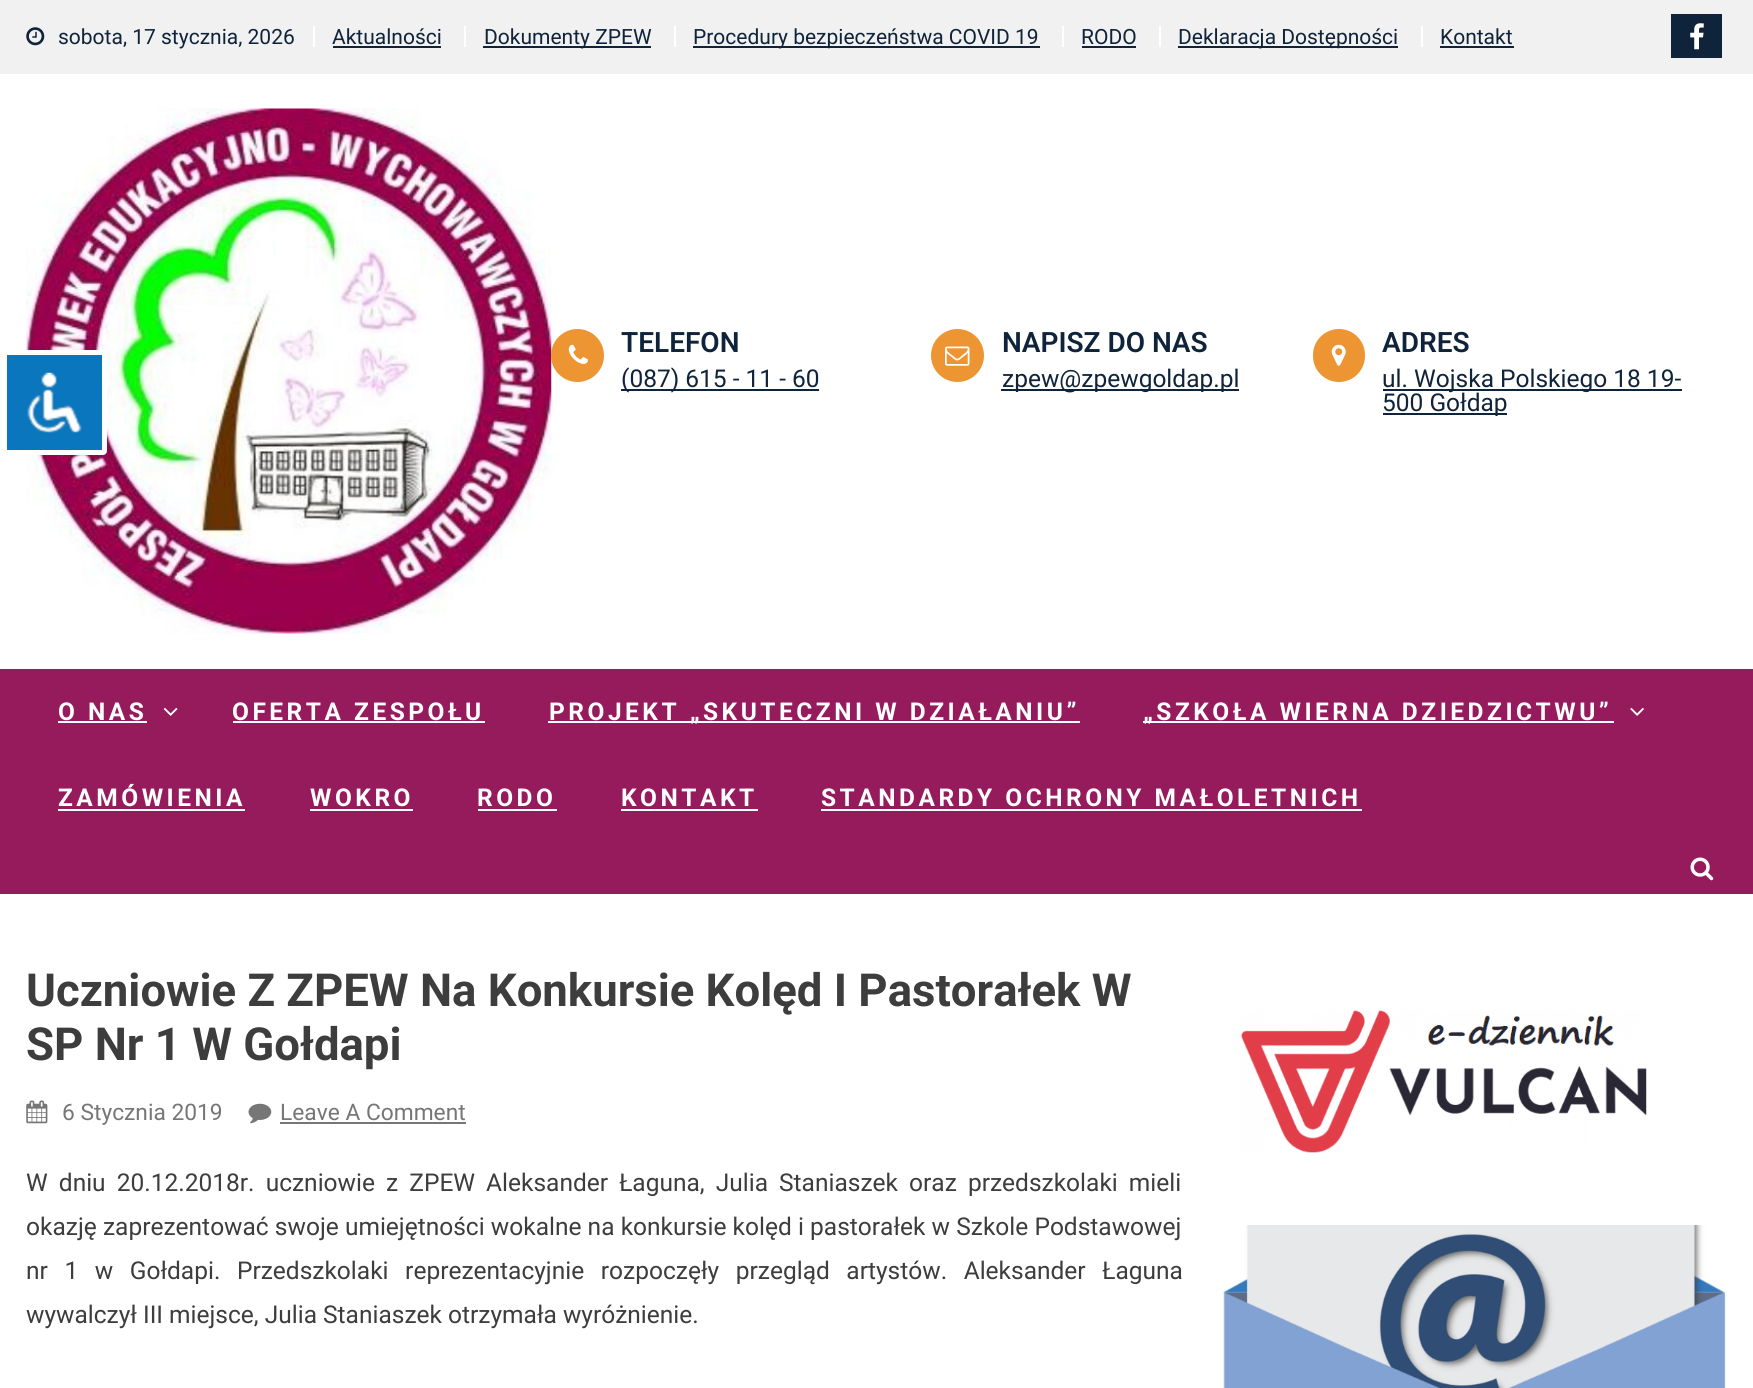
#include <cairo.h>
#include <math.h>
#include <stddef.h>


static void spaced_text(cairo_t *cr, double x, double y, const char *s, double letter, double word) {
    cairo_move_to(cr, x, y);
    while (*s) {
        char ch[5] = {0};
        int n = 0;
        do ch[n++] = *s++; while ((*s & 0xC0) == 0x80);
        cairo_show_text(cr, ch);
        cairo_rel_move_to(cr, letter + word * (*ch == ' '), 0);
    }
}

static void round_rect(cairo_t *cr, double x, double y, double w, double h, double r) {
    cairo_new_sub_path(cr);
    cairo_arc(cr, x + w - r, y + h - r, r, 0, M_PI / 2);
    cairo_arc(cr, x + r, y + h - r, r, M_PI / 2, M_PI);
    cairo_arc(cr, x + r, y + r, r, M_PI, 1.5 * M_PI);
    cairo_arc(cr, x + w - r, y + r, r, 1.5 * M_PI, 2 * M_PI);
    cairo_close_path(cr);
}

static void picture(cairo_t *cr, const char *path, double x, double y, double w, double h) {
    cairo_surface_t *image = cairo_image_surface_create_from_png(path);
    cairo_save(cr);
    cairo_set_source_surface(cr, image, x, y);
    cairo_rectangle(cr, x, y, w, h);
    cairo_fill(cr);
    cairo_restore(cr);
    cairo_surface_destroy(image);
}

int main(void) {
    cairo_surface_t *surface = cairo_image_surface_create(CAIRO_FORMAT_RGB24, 1753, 1388);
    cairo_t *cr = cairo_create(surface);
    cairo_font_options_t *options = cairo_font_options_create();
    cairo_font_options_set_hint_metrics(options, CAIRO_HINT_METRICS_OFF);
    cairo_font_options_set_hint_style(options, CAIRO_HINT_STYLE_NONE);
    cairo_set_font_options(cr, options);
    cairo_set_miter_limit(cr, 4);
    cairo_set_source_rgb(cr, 1, 1, 1);
    cairo_paint(cr);
    cairo_set_source_rgb(cr, 0.945, 0.945, 0.945);
    cairo_rectangle(cr, 0, 0, 1753, 74);
    cairo_fill(cr);
    picture(cr, "img1.png", 26, 27, 19, 19);
    cairo_select_font_face(cr, "Roboto", CAIRO_FONT_SLANT_NORMAL, CAIRO_FONT_WEIGHT_NORMAL);
    cairo_set_font_size(cr, 21);
    cairo_set_source_rgb(cr, 0.059, 0.137, 0.227);
    cairo_move_to(cr, 58, 44);
    cairo_show_text(cr, "sobota, 17 stycznia, 2026");
    cairo_set_source_rgb(cr, 1, 1, 1);
    cairo_rectangle(cr, 313, 26, 2, 21);
    cairo_fill(cr);
    cairo_set_source_rgb(cr, 0.059, 0.137, 0.227);
    cairo_move_to(cr, 332, 44);
    cairo_show_text(cr, "Aktualności");
    cairo_rectangle(cr, 333, 46, 108, 2);
    cairo_fill(cr);
    cairo_set_source_rgb(cr, 1, 1, 1);
    cairo_rectangle(cr, 464, 26, 2, 21);
    cairo_fill(cr);
    cairo_set_source_rgb(cr, 0.059, 0.137, 0.227);
    cairo_rectangle(cr, 483, 46, 168, 2);
    cairo_fill(cr);
    cairo_move_to(cr, 484, 44);
    cairo_show_text(cr, "Dokumenty ZPEW");
    cairo_set_source_rgb(cr, 1, 1, 1);
    cairo_rectangle(cr, 674, 26, 2, 21);
    cairo_fill(cr);
    cairo_set_source_rgb(cr, 0.059, 0.137, 0.227);
    cairo_rectangle(cr, 693, 46, 347, 2);
    cairo_fill(cr);
    cairo_move_to(cr, 693, 44);
    cairo_show_text(cr, "Procedury bezpieczeństwa COVID 19");
    cairo_set_source_rgb(cr, 1, 1, 1);
    cairo_rectangle(cr, 1062, 26, 2, 21);
    cairo_fill(cr);
    cairo_set_source_rgb(cr, 0.059, 0.137, 0.227);
    cairo_move_to(cr, 1081, 44);
    cairo_show_text(cr, "RODO");
    cairo_rectangle(cr, 1082, 46, 54, 2);
    cairo_fill(cr);
    cairo_set_source_rgb(cr, 1, 1, 1);
    cairo_rectangle(cr, 1159, 26, 2, 21);
    cairo_fill(cr);
    cairo_set_source_rgb(cr, 0.059, 0.137, 0.227);
    cairo_rectangle(cr, 1178, 46, 220, 2);
    cairo_fill(cr);
    cairo_move_to(cr, 1178, 44);
    cairo_show_text(cr, "Deklaracja Dostępności");
    cairo_set_source_rgb(cr, 1, 1, 1);
    cairo_rectangle(cr, 1421, 26, 2, 21);
    cairo_fill(cr);
    cairo_set_source_rgb(cr, 0.059, 0.137, 0.227);
    cairo_move_to(cr, 1440, 44);
    cairo_show_text(cr, "Kontakt");
    cairo_rectangle(cr, 1440, 46, 74, 2);
    cairo_fill(cr);
    cairo_rectangle(cr, 1671, 14, 51, 44);
    cairo_fill(cr);
    picture(cr, "img2.png", 1690, 23, 14, 27);
    picture(cr, "img3.png", 26, 108, 526, 526);
    cairo_set_source_rgb(cr, 0.929, 0.584, 0.196);
    cairo_arc(cr, 577.5, 355.5, 26.5, 0, 2 * M_PI);
    cairo_fill(cr);
    picture(cr, "img4.png", 568, 344, 20, 20);
    cairo_select_font_face(cr, "Roboto SemiBold", CAIRO_FONT_SLANT_NORMAL, CAIRO_FONT_WEIGHT_NORMAL);
    cairo_set_font_size(cr, 28);
    cairo_set_source_rgb(cr, 0.059, 0.137, 0.227);
    cairo_move_to(cr, 621, 352);
    cairo_show_text(cr, "TELEFON");
    cairo_rectangle(cr, 621, 389, 198, 2);
    cairo_fill(cr);
    cairo_select_font_face(cr, "Roboto", CAIRO_FONT_SLANT_NORMAL, CAIRO_FONT_WEIGHT_NORMAL);
    cairo_set_font_size(cr, 24.5);
    cairo_move_to(cr, 621, 387);
    cairo_show_text(cr, "(087) 615 - 11 - 60");
    cairo_set_source_rgb(cr, 0.929, 0.584, 0.196);
    cairo_new_path(cr);
    cairo_arc(cr, 957.5, 355.5, 26.5, 0, 2 * M_PI);
    cairo_fill(cr);
    picture(cr, "img5.png", 945, 346, 25, 20);
    cairo_select_font_face(cr, "Roboto SemiBold", CAIRO_FONT_SLANT_NORMAL, CAIRO_FONT_WEIGHT_NORMAL);
    cairo_set_font_size(cr, 28);
    cairo_set_source_rgb(cr, 0.059, 0.137, 0.227);
    cairo_move_to(cr, 1002, 352);
    cairo_show_text(cr, "NAPISZ DO NAS");
    cairo_rectangle(cr, 1001, 389, 238, 2);
    cairo_fill(cr);
    cairo_select_font_face(cr, "Roboto", CAIRO_FONT_SLANT_NORMAL, CAIRO_FONT_WEIGHT_NORMAL);
    cairo_set_font_size(cr, 24.5);
    cairo_move_to(cr, 1002, 387);
    cairo_show_text(cr, "zpew@zpewgoldap.pl");
    cairo_set_source_rgb(cr, 0.929, 0.584, 0.196);
    round_rect(cr, 1313, 329, 52, 53, 26);
    cairo_fill(cr);
    picture(cr, "img6.png", 1331, 344, 15, 22);
    cairo_select_font_face(cr, "Roboto SemiBold", CAIRO_FONT_SLANT_NORMAL, CAIRO_FONT_WEIGHT_NORMAL);
    cairo_set_font_size(cr, 28);
    cairo_set_source_rgb(cr, 0.059, 0.137, 0.227);
    cairo_move_to(cr, 1382, 352);
    cairo_show_text(cr, "ADRES");
    cairo_rectangle(cr, 1383, 389, 299, 2);
    cairo_fill(cr);
    cairo_select_font_face(cr, "Roboto", CAIRO_FONT_SLANT_NORMAL, CAIRO_FONT_WEIGHT_NORMAL);
    cairo_set_font_size(cr, 24.5);
    cairo_move_to(cr, 1382, 387);
    cairo_show_text(cr, "ul. Wojska Polskiego 18 19-");
    cairo_rectangle(cr, 1383, 413, 124, 2);
    cairo_fill(cr);
    cairo_move_to(cr, 1382, 411);
    cairo_show_text(cr, "500 Gołdap");
    cairo_set_source_rgb(cr, 0.588, 0.106, 0.361);
    cairo_rectangle(cr, 0, 669, 1753, 225);
    cairo_fill(cr);
    cairo_select_font_face(cr, "Roboto", CAIRO_FONT_SLANT_NORMAL, CAIRO_FONT_WEIGHT_BOLD);
    cairo_set_source_rgb(cr, 1, 1, 1);
    spaced_text(cr, 58, 720, "O NAS", 3.5, 0);
    cairo_rectangle(cr, 58, 721, 89, 2);
    cairo_fill(cr);
    picture(cr, "img7.png", 163, 707, 15, 9);
    spaced_text(cr, 232, 720, "OFERTA ZESPOŁU", 3.5, 0);
    cairo_rectangle(cr, 233, 721, 252, 2);
    cairo_fill(cr);
    cairo_rectangle(cr, 548, 721, 532, 2);
    cairo_fill(cr);
    spaced_text(cr, 549, 720, "PROJEKT „SKUTECZNI W DZIAŁANIU”", 3.5, 0);
    cairo_rectangle(cr, 1143, 721, 471, 2);
    cairo_fill(cr);
    spaced_text(cr, 1143, 720, "„SZKOŁA WIERNA DZIEDZICTWU”", 3.5, 0);
    picture(cr, "img8.png", 1630, 707, 14, 9);
    spaced_text(cr, 58, 806, "ZAMÓWIENIA", 3.5, 0);
    cairo_rectangle(cr, 58, 809, 187, 2);
    cairo_fill(cr);
    spaced_text(cr, 310, 806, "WOKRO", 3.5, 0);
    cairo_rectangle(cr, 310, 809, 103, 2);
    cairo_fill(cr);
    spaced_text(cr, 477, 806, "RODO", 3.5, 0);
    cairo_rectangle(cr, 478, 809, 79, 2);
    cairo_fill(cr);
    spaced_text(cr, 621, 806, "KONTAKT", 3.5, 0);
    cairo_rectangle(cr, 621, 809, 137, 2);
    cairo_fill(cr);
    spaced_text(cr, 821, 806, "STANDARDY OCHRONY MAŁOLETNICH", 3.5, 0);
    cairo_rectangle(cr, 821, 809, 541, 2);
    cairo_fill(cr);
    picture(cr, "img9.png", 1690, 857, 24, 24);
    cairo_set_font_size(cr, 45.5);
    cairo_set_source_rgb(cr, 0.239, 0.239, 0.239);
    cairo_move_to(cr, 26, 1006);
    cairo_show_text(cr, "Uczniowie Z ZPEW Na Konkursie Kolęd I Pastorałek W");
    cairo_move_to(cr, 26, 1060);
    cairo_show_text(cr, "SP Nr 1 W Gołdapi");
    picture(cr, "img10.png", 26, 1100, 22, 24);
    cairo_select_font_face(cr, "Roboto", CAIRO_FONT_SLANT_NORMAL, CAIRO_FONT_WEIGHT_NORMAL);
    cairo_set_font_size(cr, 22.75);
    cairo_set_source_rgb(cr, 0.463, 0.463, 0.463);
    cairo_move_to(cr, 62, 1120);
    cairo_show_text(cr, "6 Stycznia 2019");
    picture(cr, "img11.png", 248, 1103, 24, 21);
    cairo_move_to(cr, 280, 1120);
    cairo_show_text(cr, "Leave A Comment");
    cairo_rectangle(cr, 280, 1122, 186, 2);
    cairo_fill(cr);
    cairo_set_font_size(cr, 24.5);
    cairo_set_source_rgb(cr, 0.239, 0.239, 0.239);
    spaced_text(cr, 26, 1191, "W dniu 20.12.2018r. uczniowie z ZPEW Aleksander Łaguna, Julia Staniaszek oraz przedszkolaki mieli", 0, 5);
    spaced_text(cr, 26, 1235, "okazję zaprezentować swoje umiejętności wokalne na konkursie kolęd i pastorałek w Szkole Podstawowej", 0, 0.1);
    spaced_text(cr, 26, 1279, "nr 1 w Gołdapi. Przedszkolaki reprezentacyjnie rozpoczęły przegląd artystów. Aleksander Łaguna", 0, 10.5);
    cairo_move_to(cr, 26, 1323);
    cairo_show_text(cr, "wywalczył III miejsce, Julia Staniaszek otrzymała wyróżnienie.");
    picture(cr, "img12.png", 1241, 1010, 406, 143);
    picture(cr, "img13.png", 1223, 1225, 503, 163);
    cairo_set_source_rgb(cr, 0.039, 0.463, 0.745);
    round_rect(cr, 4.5, 352.5, 100, 100, 1.5);
    cairo_fill_preserve(cr);
    cairo_set_source_rgb(cr, 1, 1, 1);
    cairo_set_line_width(cr, 5);
    cairo_stroke(cr);
    picture(cr, "img14.png", 27, 372, 55, 61);
    cairo_surface_write_to_png(surface, "page.png");
    cairo_font_options_destroy(options);
    cairo_destroy(cr);
    cairo_surface_destroy(surface);
    return 0;
}
